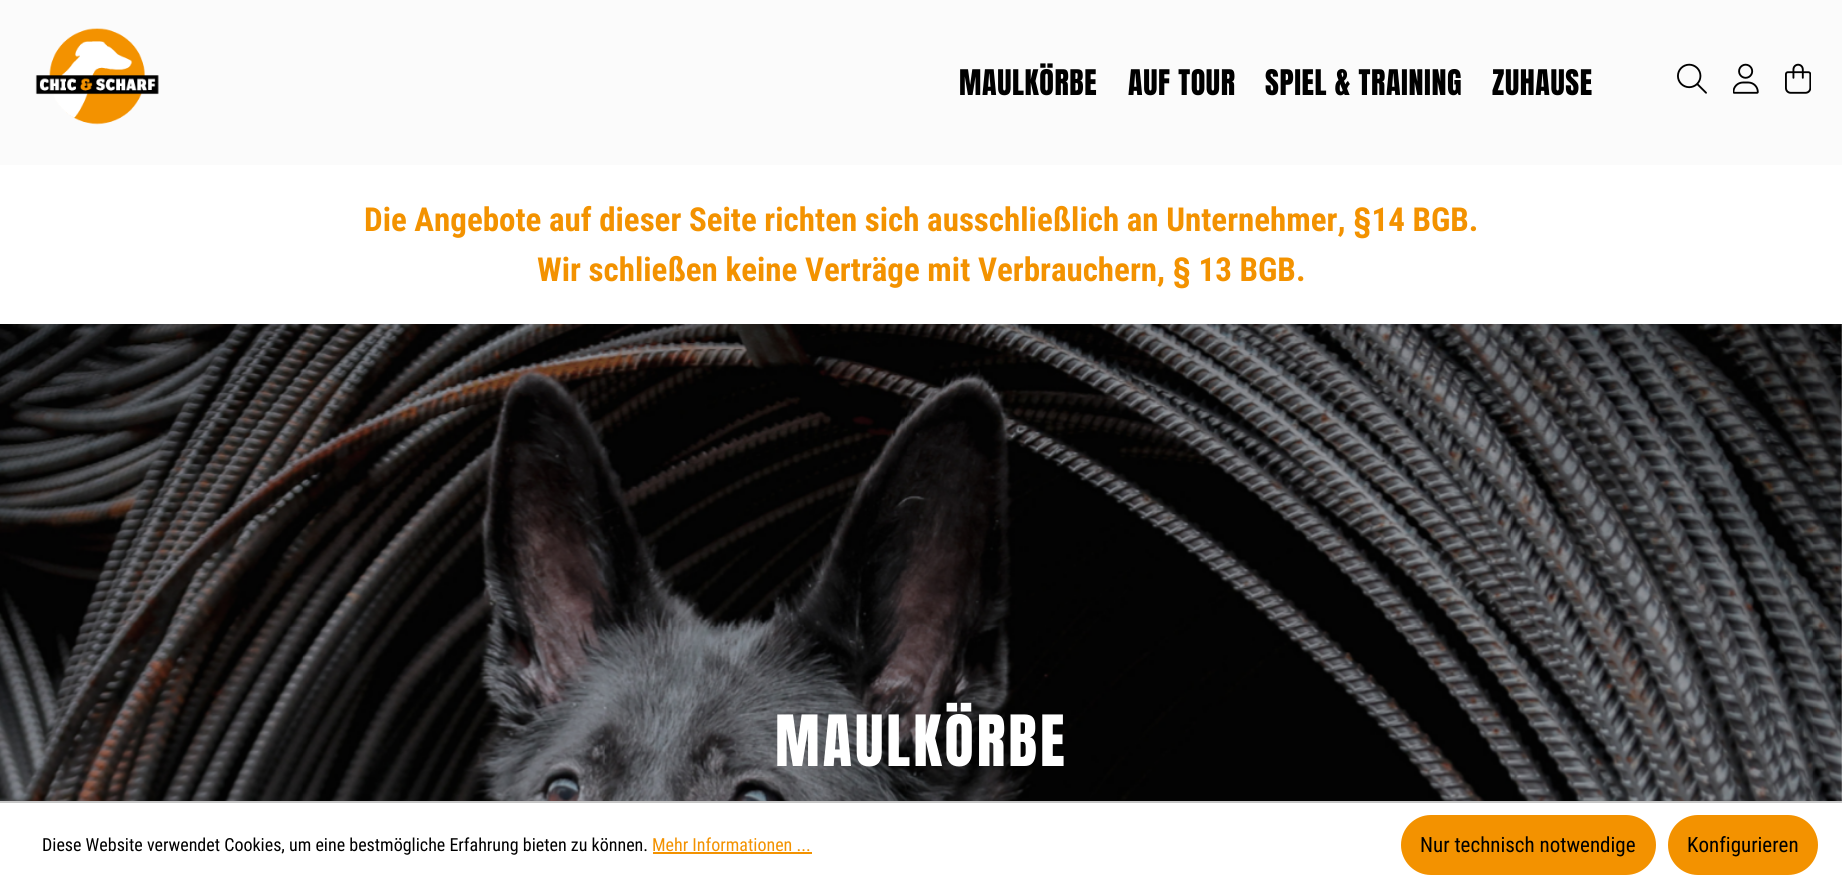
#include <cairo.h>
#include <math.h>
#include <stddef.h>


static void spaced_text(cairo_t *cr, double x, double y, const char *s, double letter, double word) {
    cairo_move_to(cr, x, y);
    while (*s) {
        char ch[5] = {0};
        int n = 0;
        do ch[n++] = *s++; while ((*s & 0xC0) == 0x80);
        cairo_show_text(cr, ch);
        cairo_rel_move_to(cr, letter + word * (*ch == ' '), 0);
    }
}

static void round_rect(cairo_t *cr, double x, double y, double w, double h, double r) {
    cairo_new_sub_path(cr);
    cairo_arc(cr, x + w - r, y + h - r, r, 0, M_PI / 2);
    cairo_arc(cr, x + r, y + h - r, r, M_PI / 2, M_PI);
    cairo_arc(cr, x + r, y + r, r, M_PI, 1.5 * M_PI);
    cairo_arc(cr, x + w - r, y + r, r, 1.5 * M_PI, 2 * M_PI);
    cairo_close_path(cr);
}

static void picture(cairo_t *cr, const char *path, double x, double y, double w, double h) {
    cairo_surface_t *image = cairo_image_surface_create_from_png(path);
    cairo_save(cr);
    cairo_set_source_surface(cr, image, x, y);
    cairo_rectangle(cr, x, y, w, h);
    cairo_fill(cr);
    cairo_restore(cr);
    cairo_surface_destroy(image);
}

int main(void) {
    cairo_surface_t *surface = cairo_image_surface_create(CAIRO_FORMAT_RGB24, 1842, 886);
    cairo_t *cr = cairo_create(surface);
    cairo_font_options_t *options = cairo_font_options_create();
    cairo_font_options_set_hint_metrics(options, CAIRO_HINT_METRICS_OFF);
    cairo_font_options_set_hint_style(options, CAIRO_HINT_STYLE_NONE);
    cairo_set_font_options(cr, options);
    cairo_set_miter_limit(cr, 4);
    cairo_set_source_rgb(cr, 1, 1, 1);
    cairo_paint(cr);
    cairo_set_source_rgb(cr, 0.984, 0.984, 0.984);
    cairo_rectangle(cr, 0, 0, 1842, 165);
    cairo_fill(cr);
    picture(cr, "img1.png", 35, 28, 124, 97);
    cairo_select_font_face(cr, "Anton", CAIRO_FONT_SLANT_NORMAL, CAIRO_FONT_WEIGHT_NORMAL);
    cairo_set_font_size(cr, 30);
    cairo_set_source_rgb(cr, 0, 0, 0);
    spaced_text(cr, 959, 95, "MAULKÖRBE", 0.6, 0);
    spaced_text(cr, 1128, 95, "AUF TOUR", 0.6, 0);
    spaced_text(cr, 1265, 95, "SPIEL & TRAINING", 0.6, 0);
    spaced_text(cr, 1492, 95, "ZUHAUSE", 0.6, 0);
    picture(cr, "img2.png", 1677, 63, 30, 31);
    picture(cr, "img3.png", 1733, 63, 26, 31);
    picture(cr, "img4.png", 1785, 63, 26, 31);
    cairo_select_font_face(cr, "Roboto Condensed", CAIRO_FONT_SLANT_NORMAL, CAIRO_FONT_WEIGHT_BOLD);
    cairo_set_font_size(cr, 33);
    cairo_set_source_rgb(cr, 0.953, 0.573, 0);
    cairo_move_to(cr, 364, 231);
    cairo_show_text(cr, "Die Angebote auf dieser Seite richten sich ausschließlich an Unternehmer, §14 BGB.");
    cairo_move_to(cr, 537, 281);
    cairo_show_text(cr, "Wir schließen keine Verträge mit Verbrauchern, § 13 BGB.");
    picture(cr, "img5.png", 0, 324, 1842, 477);
    cairo_select_font_face(cr, "Anton", CAIRO_FONT_SLANT_NORMAL, CAIRO_FONT_WEIGHT_NORMAL);
    cairo_set_font_size(cr, 60);
    cairo_set_source_rgb(cr, 1, 1, 1);
    spaced_text(cr, 775, 766, "MAULKÖRBE", 3, 0);
    cairo_set_source_rgb(cr, 0.776, 0.776, 0.776);
    cairo_rectangle(cr, 0, 801, 1842, 2);
    cairo_fill(cr);
    cairo_select_font_face(cr, "Roboto Condensed", CAIRO_FONT_SLANT_NORMAL, CAIRO_FONT_WEIGHT_NORMAL);
    cairo_set_font_size(cr, 18);
    cairo_set_source_rgb(cr, 0, 0, 0);
    cairo_move_to(cr, 42, 851);
    cairo_show_text(cr, "Diese Website verwendet Cookies, um eine bestmögliche Erfahrung bieten zu können.");
    cairo_set_source_rgb(cr, 0.953, 0.573, 0);
    cairo_move_to(cr, 652, 851);
    cairo_show_text(cr, "Mehr Informationen ...");
    cairo_rectangle(cr, 653, 852, 159, 2);
    cairo_fill(cr);
    round_rect(cr, 1402, 816, 253, 58, 29);
    cairo_fill_preserve(cr);
    cairo_stroke(cr);
    cairo_set_font_size(cr, 21);
    cairo_set_source_rgb(cr, 0, 0, 0);
    cairo_move_to(cr, 1420, 852);
    cairo_show_text(cr, "Nur technisch notwendige");
    cairo_set_source_rgb(cr, 0.953, 0.573, 0);
    round_rect(cr, 1669, 816, 148, 58, 29);
    cairo_fill_preserve(cr);
    cairo_stroke(cr);
    cairo_set_source_rgb(cr, 0, 0, 0);
    cairo_move_to(cr, 1687, 852);
    cairo_show_text(cr, "Konfigurieren");
    cairo_surface_write_to_png(surface, "page.png");
    cairo_font_options_destroy(options);
    cairo_destroy(cr);
    cairo_surface_destroy(surface);
    return 0;
}
